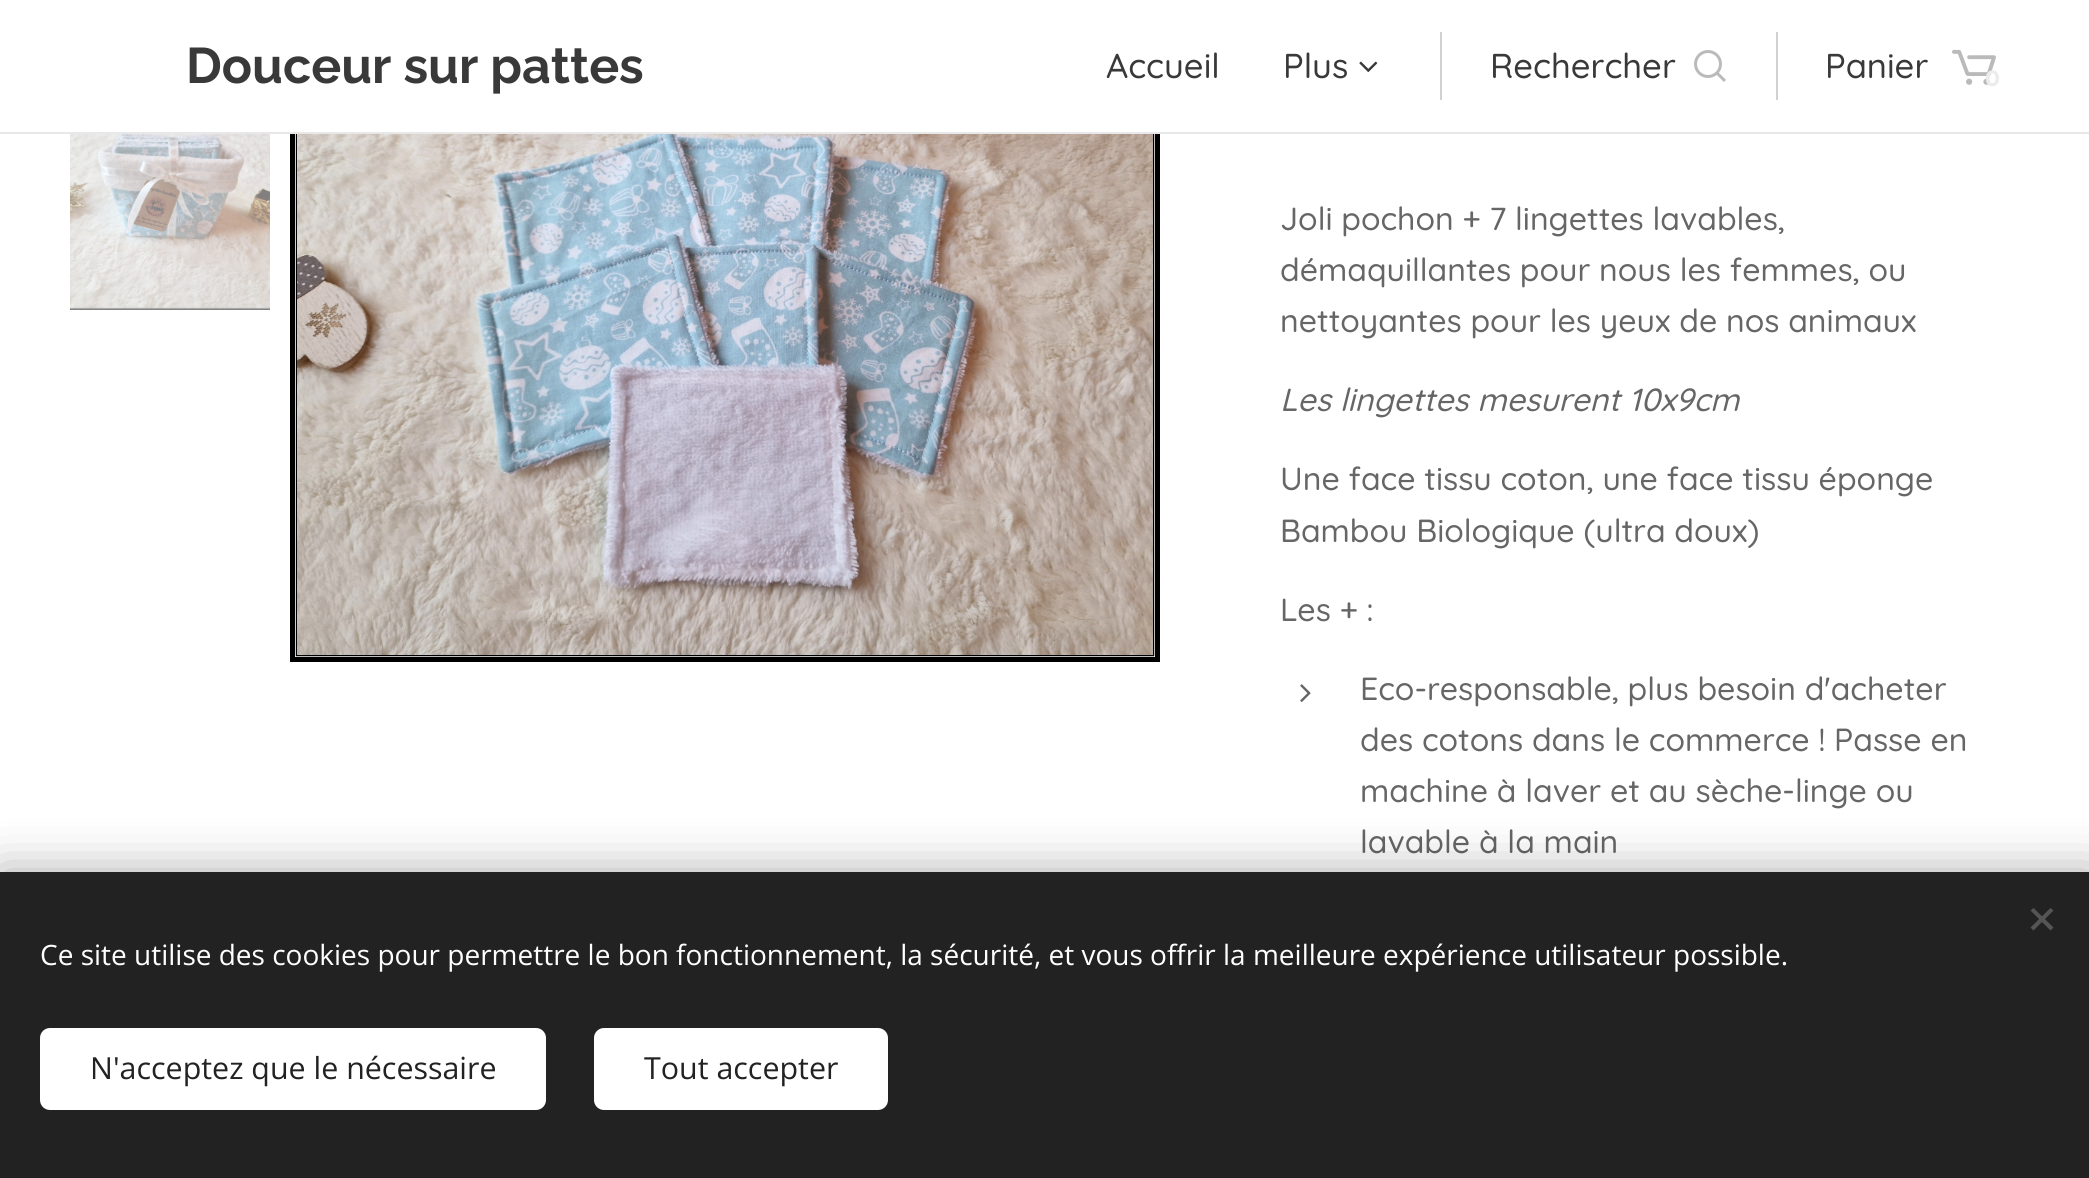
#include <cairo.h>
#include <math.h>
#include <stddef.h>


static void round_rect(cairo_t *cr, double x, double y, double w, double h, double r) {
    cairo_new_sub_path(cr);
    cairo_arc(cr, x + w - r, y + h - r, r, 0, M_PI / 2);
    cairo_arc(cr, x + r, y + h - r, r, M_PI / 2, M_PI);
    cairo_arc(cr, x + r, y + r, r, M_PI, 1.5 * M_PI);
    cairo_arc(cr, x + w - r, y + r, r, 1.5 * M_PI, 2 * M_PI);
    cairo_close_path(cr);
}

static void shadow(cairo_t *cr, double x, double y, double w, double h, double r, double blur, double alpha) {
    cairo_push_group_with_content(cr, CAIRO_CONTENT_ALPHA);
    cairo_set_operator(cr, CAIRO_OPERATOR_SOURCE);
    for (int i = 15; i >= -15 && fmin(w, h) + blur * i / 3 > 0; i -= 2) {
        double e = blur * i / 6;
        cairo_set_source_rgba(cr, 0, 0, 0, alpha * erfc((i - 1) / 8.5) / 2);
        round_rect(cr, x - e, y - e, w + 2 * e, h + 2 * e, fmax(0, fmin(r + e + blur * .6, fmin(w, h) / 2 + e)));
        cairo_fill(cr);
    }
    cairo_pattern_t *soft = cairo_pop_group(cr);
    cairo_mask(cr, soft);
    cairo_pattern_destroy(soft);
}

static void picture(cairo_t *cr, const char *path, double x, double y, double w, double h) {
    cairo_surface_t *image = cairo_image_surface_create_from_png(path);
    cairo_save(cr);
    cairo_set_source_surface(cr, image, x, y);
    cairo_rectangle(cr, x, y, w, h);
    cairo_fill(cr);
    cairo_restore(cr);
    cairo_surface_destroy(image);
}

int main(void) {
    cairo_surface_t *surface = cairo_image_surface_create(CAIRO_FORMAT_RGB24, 2089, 1178);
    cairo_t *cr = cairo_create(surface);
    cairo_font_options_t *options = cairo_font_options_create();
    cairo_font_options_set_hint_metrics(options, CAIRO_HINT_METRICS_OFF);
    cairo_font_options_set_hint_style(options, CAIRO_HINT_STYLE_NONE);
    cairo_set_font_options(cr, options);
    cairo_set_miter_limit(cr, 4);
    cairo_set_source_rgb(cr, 1, 1, 1);
    cairo_paint(cr);
    cairo_set_source_rgb(cr, 0.91, 0.91, 0.91);
    cairo_rectangle(cr, 0, 132, 2089, 2);
    cairo_fill(cr);
    cairo_select_font_face(cr, "Raleway", CAIRO_FONT_SLANT_NORMAL, CAIRO_FONT_WEIGHT_BOLD);
    cairo_set_font_size(cr, 50);
    cairo_set_source_rgb(cr, 0.224, 0.224, 0.224);
    cairo_move_to(cr, 186, 83);
    cairo_show_text(cr, "Douceur sur pattes");
    cairo_select_font_face(cr, "Quicksand Medium", CAIRO_FONT_SLANT_NORMAL, CAIRO_FONT_WEIGHT_NORMAL);
    cairo_set_font_size(cr, 34.5);
    cairo_move_to(cr, 1106, 78);
    cairo_show_text(cr, "Accueil");
    cairo_move_to(cr, 1283, 78);
    cairo_show_text(cr, "Plus");
    picture(cr, "img1.png", 1359, 61, 19, 11);
    cairo_set_source_rgb(cr, 0.82, 0.82, 0.82);
    cairo_rectangle(cr, 1440, 32, 2, 68);
    cairo_fill(cr);
    cairo_set_source_rgb(cr, 0.224, 0.224, 0.224);
    cairo_move_to(cr, 1490, 78);
    cairo_show_text(cr, "Rechercher");
    picture(cr, "img2.png", 1694, 50, 32, 32);
    cairo_set_source_rgb(cr, 0.82, 0.82, 0.82);
    cairo_rectangle(cr, 1776, 32, 2, 68);
    cairo_fill(cr);
    cairo_set_source_rgb(cr, 0.224, 0.224, 0.224);
    cairo_move_to(cr, 1825, 78);
    cairo_show_text(cr, "Panier");
    picture(cr, "img3.png", 1952, 49, 44, 36);
    cairo_select_font_face(cr, "Montserrat", CAIRO_FONT_SLANT_NORMAL, CAIRO_FONT_WEIGHT_BOLD);
    cairo_set_font_size(cr, 22);
    cairo_set_source_rgb(cr, 0.922, 0.922, 0.922);
    cairo_move_to(cr, 1985, 86);
    cairo_show_text(cr, "0");
    picture(cr, "img4.png", 70, 134, 200, 176);
    picture(cr, "img5.png", 290, 134, 870, 528);
    cairo_select_font_face(cr, "Quicksand Medium", CAIRO_FONT_SLANT_NORMAL, CAIRO_FONT_WEIGHT_NORMAL);
    cairo_set_font_size(cr, 32);
    cairo_set_source_rgb(cr, 0.4, 0.4, 0.4);
    cairo_move_to(cr, 1280, 230);
    cairo_show_text(cr, "Joli pochon + 7 lingettes lavables,");
    cairo_move_to(cr, 1280, 281);
    cairo_show_text(cr, "démaquillantes pour nous les femmes, ou");
    cairo_move_to(cr, 1280, 332);
    cairo_show_text(cr, "nettoyantes pour les yeux de nos animaux");
    cairo_select_font_face(cr, "Quicksand Medium", CAIRO_FONT_SLANT_ITALIC, CAIRO_FONT_WEIGHT_NORMAL);
    cairo_move_to(cr, 1280, 411);
    cairo_show_text(cr, "Les lingettes mesurent 10x9cm");
    cairo_select_font_face(cr, "Quicksand Medium", CAIRO_FONT_SLANT_NORMAL, CAIRO_FONT_WEIGHT_NORMAL);
    cairo_move_to(cr, 1280, 490);
    cairo_show_text(cr, "Une face tissu coton, une face tissu éponge");
    cairo_move_to(cr, 1280, 542);
    cairo_show_text(cr, "Bambou Biologique (ultra doux)");
    cairo_move_to(cr, 1280, 621);
    cairo_show_text(cr, "Les + :");
    picture(cr, "img6.png", 1300, 684, 11, 18);
    cairo_move_to(cr, 1360, 700);
    cairo_show_text(cr, "Eco-responsable, plus besoin d'acheter");
    cairo_move_to(cr, 1360, 751);
    cairo_show_text(cr, "des cotons dans le commerce ! Passe en");
    cairo_move_to(cr, 1360, 802);
    cairo_show_text(cr, "machine à laver et au sèche-linge ou");
    cairo_move_to(cr, 1360, 853);
    cairo_show_text(cr, "lavable à la main");
    cairo_set_source_rgb(cr, 0, 0, 0);
    shadow(cr, 0, 872, 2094, 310, 0, 25, 0.33);
    cairo_set_source_rgb(cr, 0.133, 0.133, 0.133);
    cairo_rectangle(cr, 0, 872, 2089, 306);
    cairo_fill(cr);
    cairo_set_source_rgb(cr, 0.333, 0.333, 0.333);
    cairo_new_path(cr);
    cairo_move_to(cr, 2030.5, 927.5);
    cairo_line_to(cr, 2050.5, 908);
    cairo_line_to(cr, 2053.5, 910.5);
    cairo_line_to(cr, 2033.5, 930.5);
    cairo_close_path(cr);
    cairo_fill(cr);
    cairo_new_path(cr);
    cairo_move_to(cr, 2033.5, 908);
    cairo_line_to(cr, 2053.5, 927.5);
    cairo_line_to(cr, 2050.5, 930.5);
    cairo_line_to(cr, 2030.5, 910.5);
    cairo_close_path(cr);
    cairo_fill(cr);
    cairo_select_font_face(cr, "Open Sans", CAIRO_FONT_SLANT_NORMAL, CAIRO_FONT_WEIGHT_NORMAL);
    cairo_set_font_size(cr, 28);
    cairo_set_source_rgb(cr, 1, 1, 1);
    cairo_move_to(cr, 40, 965);
    cairo_show_text(cr, "Ce site utilise des cookies pour permettre le bon fonctionnement, la sécurité, et vous offrir la meilleure expérience utilisateur possible.");
    round_rect(cr, 40, 1028, 506, 82, 10);
    cairo_fill(cr);
    cairo_set_font_size(cr, 30.4);
    cairo_set_source_rgb(cr, 0.133, 0.133, 0.133);
    cairo_move_to(cr, 90, 1079);
    cairo_show_text(cr, "N'acceptez que le nécessaire");
    cairo_set_source_rgb(cr, 1, 1, 1);
    round_rect(cr, 594, 1028, 294, 82, 10);
    cairo_fill(cr);
    cairo_set_source_rgb(cr, 0.133, 0.133, 0.133);
    cairo_move_to(cr, 644, 1079);
    cairo_show_text(cr, "Tout accepter");
    cairo_surface_write_to_png(surface, "page.png");
    cairo_font_options_destroy(options);
    cairo_destroy(cr);
    cairo_surface_destroy(surface);
    return 0;
}
